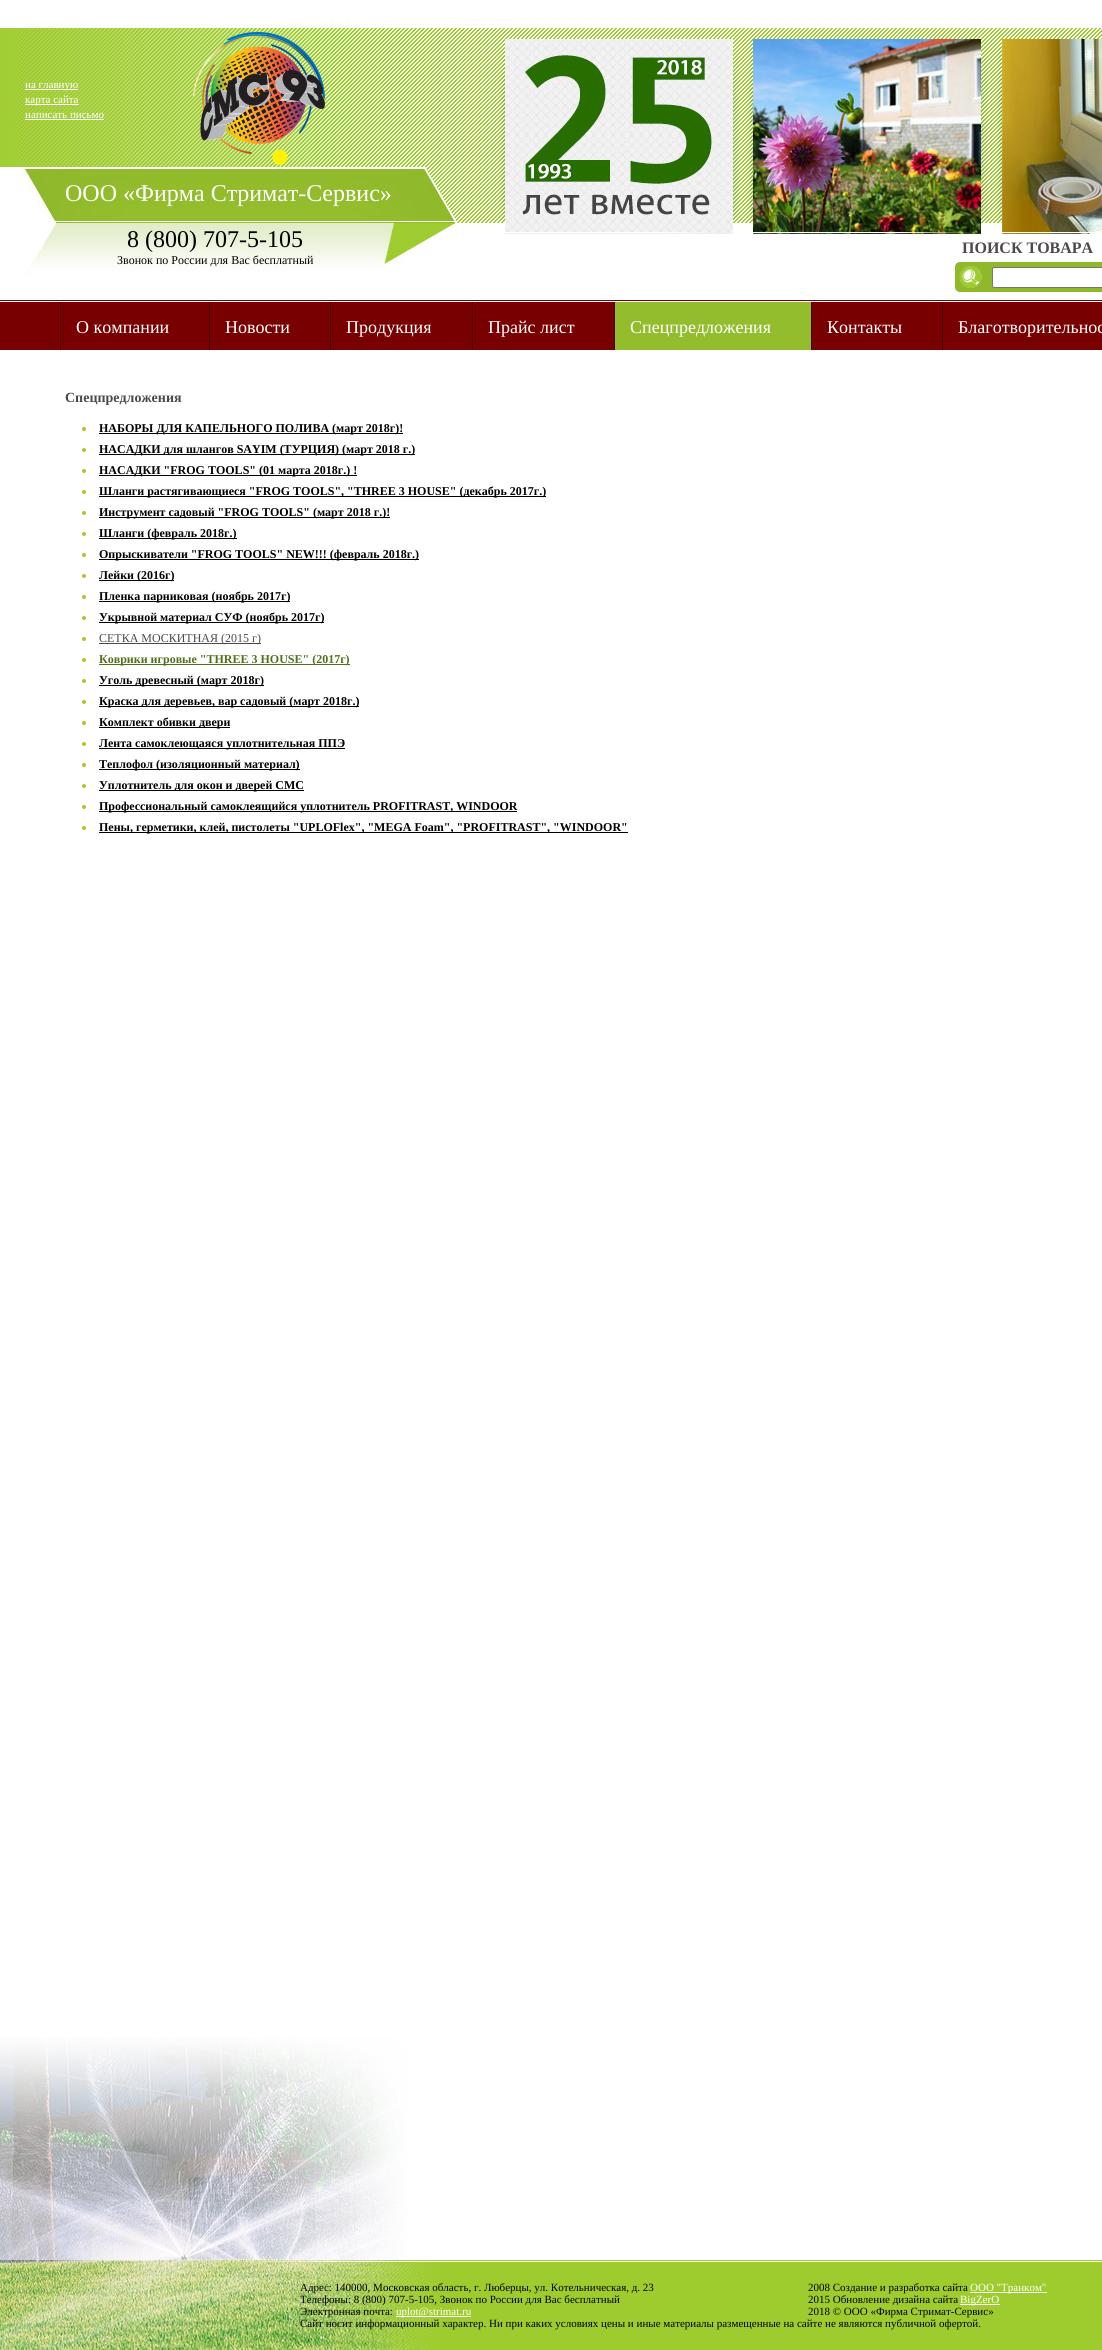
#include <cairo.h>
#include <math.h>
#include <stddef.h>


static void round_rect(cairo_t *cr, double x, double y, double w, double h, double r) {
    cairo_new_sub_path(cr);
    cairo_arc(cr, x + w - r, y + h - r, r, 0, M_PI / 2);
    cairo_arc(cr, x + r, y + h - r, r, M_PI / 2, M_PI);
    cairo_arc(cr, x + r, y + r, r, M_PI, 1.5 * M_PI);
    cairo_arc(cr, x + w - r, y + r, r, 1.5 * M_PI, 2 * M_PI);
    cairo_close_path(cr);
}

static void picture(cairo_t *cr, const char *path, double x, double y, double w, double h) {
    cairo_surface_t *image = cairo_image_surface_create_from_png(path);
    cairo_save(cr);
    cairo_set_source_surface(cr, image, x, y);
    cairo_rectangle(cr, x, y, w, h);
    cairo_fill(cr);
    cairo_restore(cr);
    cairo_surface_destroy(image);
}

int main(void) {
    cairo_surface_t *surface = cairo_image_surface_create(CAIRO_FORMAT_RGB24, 1102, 2350);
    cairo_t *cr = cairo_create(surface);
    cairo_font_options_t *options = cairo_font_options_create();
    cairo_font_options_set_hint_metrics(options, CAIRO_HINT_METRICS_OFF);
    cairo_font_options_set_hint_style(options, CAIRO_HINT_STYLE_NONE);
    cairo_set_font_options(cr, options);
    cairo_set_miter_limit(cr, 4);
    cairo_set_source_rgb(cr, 1, 1, 1);
    cairo_paint(cr);
    picture(cr, "img1.png", 0, 0, 495, 300);
    cairo_set_source_rgb(cr, 1, 1, 1);
    cairo_rectangle(cr, 25, 89, 53, 1);
    cairo_fill(cr);
    cairo_select_font_face(cr, "Liberation Serif", CAIRO_FONT_SLANT_NORMAL, CAIRO_FONT_WEIGHT_NORMAL);
    cairo_set_font_size(cr, 11);
    cairo_move_to(cr, 25, 88);
    cairo_show_text(cr, "на главную");
    cairo_rectangle(cr, 25, 104, 54, 1);
    cairo_fill(cr);
    cairo_move_to(cr, 25, 103);
    cairo_show_text(cr, "карта сайта");
    cairo_move_to(cr, 25, 118);
    cairo_show_text(cr, "написать письмо");
    cairo_rectangle(cr, 25, 119, 79, 1);
    cairo_fill(cr);
    picture(cr, "img2.png", 193, 32, 132, 133);
    cairo_set_font_size(cr, 24);
    cairo_move_to(cr, 65, 201);
    cairo_show_text(cr, "ООО «Фирма Стримат-Сервис»");
    cairo_set_source_rgb(cr, 0, 0, 0);
    cairo_move_to(cr, 127, 247);
    cairo_show_text(cr, "8 (800) 707-5-105");
    cairo_set_font_size(cr, 12);
    cairo_move_to(cr, 117, 264);
    cairo_show_text(cr, "Звонок по России для Вас бесплатный");
    picture(cr, "img3.png", 495, 0, 607, 300);
    picture(cr, "img4.png", 499, 47, 6, 174);
    picture(cr, "img5.png", 505, 39, 228, 195);
    picture(cr, "img6.png", 505, 232, 206, 1);
    picture(cr, "img7.png", 733, 47, 6, 174);
    picture(cr, "img4.png", 747, 47, 6, 174);
    picture(cr, "img8.png", 753, 39, 228, 195);
    picture(cr, "img9.png", 753, 232, 224, 1);
    picture(cr, "img10.png", 981, 47, 7, 174);
    picture(cr, "img11.png", 996, 47, 6, 174);
    picture(cr, "img12.png", 1002, 39, 100, 195);
    cairo_set_source_rgb(cr, 1, 1, 1);
    cairo_rectangle(cr, 1002, 232, 94, 1);
    cairo_fill(cr);
    cairo_select_font_face(cr, "Liberation Serif", CAIRO_FONT_SLANT_NORMAL, CAIRO_FONT_WEIGHT_BOLD);
    cairo_set_font_size(cr, 16);
    cairo_set_source_rgb(cr, 0.302, 0.286, 0.282);
    cairo_move_to(cr, 962, 253);
    cairo_show_text(cr, "ПОИСК ТОВАРА");
    cairo_set_source_rgb(cr, 0.561, 0.722, 0.165);
    round_rect(cr, 955, 262, 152, 30, 5);
    cairo_fill(cr);
    picture(cr, "img13.png", 959, 266, 23, 22);
    cairo_set_source_rgb(cr, 1, 1, 1);
    round_rect(cr, 992.5, 267.5, 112, 20, 1.5);
    cairo_fill_preserve(cr);
    cairo_set_source_rgb(cr, 0.463, 0.463, 0.463);
    cairo_set_line_width(cr, 1);
    cairo_stroke(cr);
    cairo_set_source_rgb(cr, 0.475, 0, 0);
    cairo_rectangle(cr, 0, 300, 1102, 50);
    cairo_fill(cr);
    cairo_set_source_rgb(cr, 1, 1, 1);
    cairo_rectangle(cr, 0, 301, 1102, 1);
    cairo_fill(cr);
    cairo_set_source_rgb(cr, 0.271, 0, 0);
    cairo_rectangle(cr, 60, 302, 1, 48);
    cairo_fill(cr);
    cairo_select_font_face(cr, "Liberation Serif", CAIRO_FONT_SLANT_NORMAL, CAIRO_FONT_WEIGHT_NORMAL);
    cairo_set_font_size(cr, 18);
    cairo_set_source_rgb(cr, 1, 1, 1);
    cairo_move_to(cr, 76, 333);
    cairo_show_text(cr, "О компании");
    cairo_set_source_rgb(cr, 0.271, 0, 0);
    cairo_rectangle(cr, 209, 302, 1, 48);
    cairo_fill(cr);
    cairo_set_source_rgb(cr, 1, 1, 1);
    cairo_move_to(cr, 225, 333);
    cairo_show_text(cr, "Новости");
    cairo_set_source_rgb(cr, 0.271, 0, 0);
    cairo_rectangle(cr, 330, 302, 1, 48);
    cairo_fill(cr);
    cairo_set_source_rgb(cr, 1, 1, 1);
    cairo_move_to(cr, 346, 333);
    cairo_show_text(cr, "Продукция");
    cairo_set_source_rgb(cr, 0.271, 0, 0);
    cairo_rectangle(cr, 472, 302, 1, 48);
    cairo_fill(cr);
    cairo_set_source_rgb(cr, 1, 1, 1);
    cairo_move_to(cr, 488, 333);
    cairo_show_text(cr, "Прайс лист");
    cairo_set_source_rgb(cr, 0.576, 0.741, 0.176);
    cairo_rectangle(cr, 615, 302, 196, 48);
    cairo_fill(cr);
    cairo_set_source_rgb(cr, 0.271, 0, 0);
    cairo_rectangle(cr, 614, 302, 1, 48);
    cairo_fill(cr);
    cairo_set_source_rgb(cr, 1, 1, 1);
    cairo_move_to(cr, 630, 333);
    cairo_show_text(cr, "Спецпредложения");
    cairo_set_source_rgb(cr, 0.271, 0, 0);
    cairo_rectangle(cr, 811, 302, 1, 48);
    cairo_fill(cr);
    cairo_set_source_rgb(cr, 1, 1, 1);
    cairo_move_to(cr, 827, 333);
    cairo_show_text(cr, "Контакты");
    cairo_set_source_rgb(cr, 0.271, 0, 0);
    cairo_rectangle(cr, 942, 302, 1, 48);
    cairo_fill(cr);
    cairo_set_source_rgb(cr, 1, 1, 1);
    cairo_move_to(cr, 958, 333);
    cairo_show_text(cr, "Благотворительнос");
    picture(cr, "img14.png", 0, 2037, 408, 223);
    cairo_select_font_face(cr, "Liberation Serif", CAIRO_FONT_SLANT_NORMAL, CAIRO_FONT_WEIGHT_BOLD);
    cairo_set_font_size(cr, 14);
    cairo_set_source_rgb(cr, 0.302, 0.286, 0.282);
    cairo_move_to(cr, 65, 402);
    cairo_show_text(cr, "Спецпредложения");
    cairo_set_source_rgb(cr, 0.62, 0.8, 0.18);
    cairo_new_path(cr);
    cairo_arc(cr, 84, 429, 2, 0, 2 * M_PI);
    cairo_fill(cr);
    cairo_set_source_rgb(cr, 0, 0, 0);
    cairo_rectangle(cr, 99, 433, 304, 1);
    cairo_fill(cr);
    cairo_set_font_size(cr, 12);
    cairo_move_to(cr, 99, 432);
    cairo_show_text(cr, "НАБОРЫ ДЛЯ КАПЕЛЬНОГО ПОЛИВА (март 2018г)!");
    cairo_set_source_rgb(cr, 0.62, 0.8, 0.18);
    cairo_new_path(cr);
    cairo_arc(cr, 84, 450, 2, 0, 2 * M_PI);
    cairo_fill(cr);
    cairo_set_source_rgb(cr, 0, 0, 0);
    cairo_rectangle(cr, 99, 454, 316, 1);
    cairo_fill(cr);
    cairo_move_to(cr, 99, 453);
    cairo_show_text(cr, "НАСАДКИ для шлангов SAYIM (ТУРЦИЯ) (март 2018 г.)");
    cairo_set_source_rgb(cr, 0.62, 0.8, 0.18);
    cairo_new_path(cr);
    cairo_arc(cr, 84, 471, 2, 0, 2 * M_PI);
    cairo_fill(cr);
    cairo_set_source_rgb(cr, 0, 0, 0);
    cairo_rectangle(cr, 99, 475, 258, 1);
    cairo_fill(cr);
    cairo_move_to(cr, 99, 474);
    cairo_show_text(cr, "НАСАДКИ \"FROG TOOLS\" (01 марта 2018г.) !");
    cairo_set_source_rgb(cr, 0.62, 0.8, 0.18);
    cairo_new_path(cr);
    cairo_arc(cr, 84, 492, 2, 0, 2 * M_PI);
    cairo_fill(cr);
    cairo_set_source_rgb(cr, 0, 0, 0);
    cairo_rectangle(cr, 99, 496, 447, 1);
    cairo_fill(cr);
    cairo_move_to(cr, 99, 495);
    cairo_show_text(cr, "Шланги растягивающиеся \"FROG TOOLS\", \"THREE 3 HOUSE\" (декабрь 2017г.)");
    cairo_set_source_rgb(cr, 0.62, 0.8, 0.18);
    cairo_new_path(cr);
    cairo_arc(cr, 84, 513, 2, 0, 2 * M_PI);
    cairo_fill(cr);
    cairo_set_source_rgb(cr, 0, 0, 0);
    cairo_rectangle(cr, 99, 517, 291, 1);
    cairo_fill(cr);
    cairo_move_to(cr, 99, 516);
    cairo_show_text(cr, "Инструмент садовый \"FROG TOOLS\" (март 2018 г.)!");
    cairo_set_source_rgb(cr, 0.62, 0.8, 0.18);
    cairo_new_path(cr);
    cairo_arc(cr, 84, 534, 2, 0, 2 * M_PI);
    cairo_fill(cr);
    cairo_set_source_rgb(cr, 0, 0, 0);
    cairo_rectangle(cr, 99, 538, 138, 1);
    cairo_fill(cr);
    cairo_move_to(cr, 99, 537);
    cairo_show_text(cr, "Шланги (февраль 2018г.)");
    cairo_set_source_rgb(cr, 0.62, 0.8, 0.18);
    cairo_new_path(cr);
    cairo_arc(cr, 84, 555, 2, 0, 2 * M_PI);
    cairo_fill(cr);
    cairo_set_source_rgb(cr, 0, 0, 0);
    cairo_rectangle(cr, 99, 559, 320, 1);
    cairo_fill(cr);
    cairo_move_to(cr, 99, 558);
    cairo_show_text(cr, "Опрыскиватели \"FROG TOOLS\" NEW!!! (февраль 2018г.)");
    cairo_set_source_rgb(cr, 0.62, 0.8, 0.18);
    cairo_new_path(cr);
    cairo_arc(cr, 84, 576, 2, 0, 2 * M_PI);
    cairo_fill(cr);
    cairo_set_source_rgb(cr, 0, 0, 0);
    cairo_rectangle(cr, 99, 580, 75, 1);
    cairo_fill(cr);
    cairo_move_to(cr, 99, 579);
    cairo_show_text(cr, "Лейки (2016г)");
    cairo_set_source_rgb(cr, 0.62, 0.8, 0.18);
    cairo_new_path(cr);
    cairo_arc(cr, 84, 597, 2, 0, 2 * M_PI);
    cairo_fill(cr);
    cairo_set_source_rgb(cr, 0, 0, 0);
    cairo_rectangle(cr, 99, 601, 191, 1);
    cairo_fill(cr);
    cairo_move_to(cr, 99, 600);
    cairo_show_text(cr, "Пленка парниковая (ноябрь 2017г)");
    cairo_set_source_rgb(cr, 0.62, 0.8, 0.18);
    cairo_new_path(cr);
    cairo_arc(cr, 84, 618, 2, 0, 2 * M_PI);
    cairo_fill(cr);
    cairo_set_source_rgb(cr, 0, 0, 0);
    cairo_rectangle(cr, 99, 622, 225, 1);
    cairo_fill(cr);
    cairo_move_to(cr, 99, 621);
    cairo_show_text(cr, "Укрывной материал СУФ (ноябрь 2017г)");
    cairo_set_source_rgb(cr, 0.62, 0.8, 0.18);
    cairo_new_path(cr);
    cairo_arc(cr, 84, 639, 2, 0, 2 * M_PI);
    cairo_fill(cr);
    cairo_set_source_rgb(cr, 0.302, 0.286, 0.282);
    cairo_rectangle(cr, 99, 643, 162, 1);
    cairo_fill(cr);
    cairo_select_font_face(cr, "Liberation Serif", CAIRO_FONT_SLANT_NORMAL, CAIRO_FONT_WEIGHT_NORMAL);
    cairo_move_to(cr, 99, 642);
    cairo_show_text(cr, "СЕТКА МОСКИТНАЯ (2015 г)");
    cairo_set_source_rgb(cr, 0.62, 0.8, 0.18);
    cairo_new_path(cr);
    cairo_arc(cr, 84, 660, 2, 0, 2 * M_PI);
    cairo_fill(cr);
    cairo_set_source_rgb(cr, 0.318, 0.439, 0.102);
    cairo_rectangle(cr, 99, 664, 251, 1);
    cairo_fill(cr);
    cairo_select_font_face(cr, "Liberation Serif", CAIRO_FONT_SLANT_NORMAL, CAIRO_FONT_WEIGHT_BOLD);
    cairo_move_to(cr, 99, 663);
    cairo_show_text(cr, "Коврики игровые \"THREE 3 HOUSE\" (2017г)");
    cairo_set_source_rgb(cr, 0.62, 0.8, 0.18);
    cairo_new_path(cr);
    cairo_arc(cr, 84, 681, 2, 0, 2 * M_PI);
    cairo_fill(cr);
    cairo_set_source_rgb(cr, 0, 0, 0);
    cairo_rectangle(cr, 99, 685, 165, 1);
    cairo_fill(cr);
    cairo_move_to(cr, 99, 684);
    cairo_show_text(cr, "Уголь древесный (март 2018г)");
    cairo_set_source_rgb(cr, 0.62, 0.8, 0.18);
    cairo_new_path(cr);
    cairo_arc(cr, 84, 702, 2, 0, 2 * M_PI);
    cairo_fill(cr);
    cairo_set_source_rgb(cr, 0, 0, 0);
    cairo_rectangle(cr, 99, 706, 260, 1);
    cairo_fill(cr);
    cairo_move_to(cr, 99, 705);
    cairo_show_text(cr, "Краска для деревьев, вар садовый (март 2018г.)");
    cairo_set_source_rgb(cr, 0.62, 0.8, 0.18);
    cairo_new_path(cr);
    cairo_arc(cr, 84, 723, 2, 0, 2 * M_PI);
    cairo_fill(cr);
    cairo_set_source_rgb(cr, 0, 0, 0);
    cairo_rectangle(cr, 99, 727, 131, 1);
    cairo_fill(cr);
    cairo_move_to(cr, 99, 726);
    cairo_show_text(cr, "Комплект обивки двери");
    cairo_set_source_rgb(cr, 0.62, 0.8, 0.18);
    cairo_new_path(cr);
    cairo_arc(cr, 84, 744, 2, 0, 2 * M_PI);
    cairo_fill(cr);
    cairo_set_source_rgb(cr, 0, 0, 0);
    cairo_rectangle(cr, 99, 748, 246, 1);
    cairo_fill(cr);
    cairo_move_to(cr, 99, 747);
    cairo_show_text(cr, "Лента самоклеющаяся уплотнительная ППЭ");
    cairo_set_source_rgb(cr, 0.62, 0.8, 0.18);
    cairo_new_path(cr);
    cairo_arc(cr, 84, 765, 2, 0, 2 * M_PI);
    cairo_fill(cr);
    cairo_set_source_rgb(cr, 0, 0, 0);
    cairo_rectangle(cr, 99, 769, 201, 1);
    cairo_fill(cr);
    cairo_move_to(cr, 99, 768);
    cairo_show_text(cr, "Теплофол (изоляционный материал)");
    cairo_set_source_rgb(cr, 0.62, 0.8, 0.18);
    cairo_new_path(cr);
    cairo_arc(cr, 84, 786, 2, 0, 2 * M_PI);
    cairo_fill(cr);
    cairo_set_source_rgb(cr, 0, 0, 0);
    cairo_rectangle(cr, 99, 790, 205, 1);
    cairo_fill(cr);
    cairo_move_to(cr, 99, 789);
    cairo_show_text(cr, "Уплотнитель для окон и дверей СМС");
    cairo_set_source_rgb(cr, 0.62, 0.8, 0.18);
    cairo_new_path(cr);
    cairo_arc(cr, 84, 807, 2, 0, 2 * M_PI);
    cairo_fill(cr);
    cairo_set_source_rgb(cr, 0, 0, 0);
    cairo_rectangle(cr, 99, 811, 418, 1);
    cairo_fill(cr);
    cairo_move_to(cr, 99, 810);
    cairo_show_text(cr, "Профессиональный самоклеящийся уплотнитель PROFITRAST, WINDOOR");
    cairo_set_source_rgb(cr, 0.62, 0.8, 0.18);
    cairo_new_path(cr);
    cairo_arc(cr, 84, 828, 2, 0, 2 * M_PI);
    cairo_fill(cr);
    cairo_set_source_rgb(cr, 0, 0, 0);
    cairo_rectangle(cr, 99, 832, 529, 1);
    cairo_fill(cr);
    cairo_move_to(cr, 99, 831);
    cairo_show_text(cr, "Пены, герметики, клей, пистолеты \"UPLOFlex\", \"МEGA Foam\", \"PROFITRAST\", \"WINDOOR\"");
    picture(cr, "img15.png", 439, 2260, 663, 90);
    picture(cr, "img16.png", 0, 2260, 439, 90);
    cairo_select_font_face(cr, "Liberation Serif", CAIRO_FONT_SLANT_NORMAL, CAIRO_FONT_WEIGHT_NORMAL);
    cairo_set_font_size(cr, 11);
    cairo_move_to(cr, 300, 2291);
    cairo_show_text(cr, "Адрес: 140000, Московская область, г. Люберцы, ул. Котельническая, д. 23");
    cairo_move_to(cr, 300, 2303);
    cairo_show_text(cr, "Телефоны: 8 (800) 707-5-105, Звонок по России для Вас бесплатный");
    cairo_move_to(cr, 300, 2315);
    cairo_show_text(cr, "Электронная почта:");
    cairo_set_source_rgb(cr, 1, 1, 1);
    cairo_rectangle(cr, 396, 2316, 75, 1);
    cairo_fill(cr);
    cairo_move_to(cr, 396, 2315);
    cairo_show_text(cr, "uplot@strimat.ru");
    cairo_set_source_rgb(cr, 0, 0, 0);
    cairo_move_to(cr, 808, 2291);
    cairo_show_text(cr, "2008 Создание и разработка сайта");
    cairo_set_source_rgb(cr, 1, 1, 1);
    cairo_rectangle(cr, 970, 2292, 77, 1);
    cairo_fill(cr);
    cairo_move_to(cr, 970, 2291);
    cairo_show_text(cr, "ООО \"Транком\"");
    cairo_set_source_rgb(cr, 0, 0, 0);
    cairo_move_to(cr, 808, 2303);
    cairo_show_text(cr, "2015 Обновление дизайна сайта");
    cairo_set_source_rgb(cr, 1, 1, 1);
    cairo_rectangle(cr, 960, 2304, 40, 1);
    cairo_fill(cr);
    cairo_move_to(cr, 960, 2303);
    cairo_show_text(cr, "BigZerO");
    cairo_set_source_rgb(cr, 0, 0, 0);
    cairo_move_to(cr, 808, 2315);
    cairo_show_text(cr, "2018 © ООО «Фирма Стримат-Сервис»");
    cairo_move_to(cr, 300, 2327);
    cairo_show_text(cr, "Сайт носит информационный характер. Ни при каких условиях цены и иные материалы размещенные на сайте не являются публичной офертой.");
    cairo_surface_write_to_png(surface, "page.png");
    cairo_font_options_destroy(options);
    cairo_destroy(cr);
    cairo_surface_destroy(surface);
    return 0;
}
